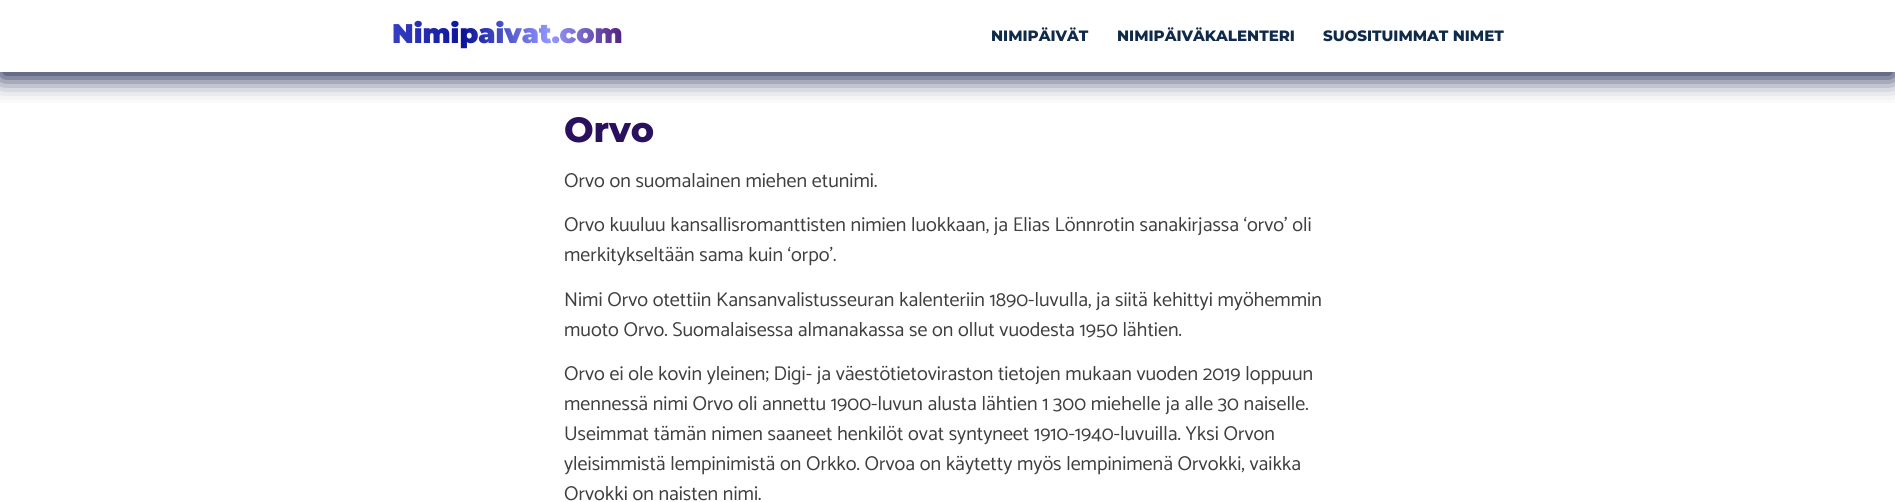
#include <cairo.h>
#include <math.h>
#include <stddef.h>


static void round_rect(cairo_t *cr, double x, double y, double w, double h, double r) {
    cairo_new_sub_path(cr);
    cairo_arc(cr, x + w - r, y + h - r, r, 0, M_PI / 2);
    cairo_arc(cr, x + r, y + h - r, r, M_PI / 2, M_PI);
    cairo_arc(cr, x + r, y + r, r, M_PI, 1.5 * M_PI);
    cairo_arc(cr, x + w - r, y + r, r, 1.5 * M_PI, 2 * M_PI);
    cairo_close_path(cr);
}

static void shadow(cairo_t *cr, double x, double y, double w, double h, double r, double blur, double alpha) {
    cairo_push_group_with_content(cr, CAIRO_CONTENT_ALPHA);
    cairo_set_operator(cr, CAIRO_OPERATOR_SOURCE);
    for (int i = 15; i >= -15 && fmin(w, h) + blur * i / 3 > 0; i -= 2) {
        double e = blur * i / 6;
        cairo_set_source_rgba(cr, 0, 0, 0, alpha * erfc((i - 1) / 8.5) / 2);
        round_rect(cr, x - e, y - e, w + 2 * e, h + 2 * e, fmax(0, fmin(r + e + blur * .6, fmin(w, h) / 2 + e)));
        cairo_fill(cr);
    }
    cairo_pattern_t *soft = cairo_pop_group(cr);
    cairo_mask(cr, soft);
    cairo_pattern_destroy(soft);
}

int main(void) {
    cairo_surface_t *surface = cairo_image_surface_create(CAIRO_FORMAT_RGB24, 1895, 502);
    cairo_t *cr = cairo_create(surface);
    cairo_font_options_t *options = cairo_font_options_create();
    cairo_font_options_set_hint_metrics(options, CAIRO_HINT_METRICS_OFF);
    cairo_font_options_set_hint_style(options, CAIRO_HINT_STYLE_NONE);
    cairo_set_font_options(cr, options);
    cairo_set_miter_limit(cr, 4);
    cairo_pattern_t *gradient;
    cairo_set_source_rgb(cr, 1, 1, 1);
    cairo_paint(cr);
    cairo_save(cr);
    cairo_rectangle(cr, 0, 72, 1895, 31);
    cairo_clip(cr);
    cairo_set_source_rgb(cr, 0.051, 0.094, 0.263);
    shadow(cr, 0, 6, 1895, 72, 0, 12, 1);
    cairo_restore(cr);
    cairo_select_font_face(cr, "Montserrat Black", CAIRO_FONT_SLANT_NORMAL, CAIRO_FONT_WEIGHT_NORMAL);
    cairo_set_font_size(cr, 27);
    gradient = cairo_pattern_create_linear(378, 33, 636, 33);
    cairo_pattern_add_color_stop_rgba(gradient, 0, 0.247, 0.278, 0.804, 1);
    cairo_pattern_add_color_stop_rgba(gradient, 0.33, 0.047, 0.078, 0.6, 1);
    cairo_pattern_add_color_stop_rgba(gradient, 0.67, 0.58, 0.604, 1, 1);
    cairo_pattern_add_color_stop_rgba(gradient, 1, 0.275, 0.047, 0.408, 1);
    cairo_set_source(cr, gradient);
    cairo_pattern_destroy(gradient);
    cairo_move_to(cr, 392, 43);
    cairo_show_text(cr, "Nimipaivat.com");
    cairo_select_font_face(cr, "Montserrat ExtraBold", CAIRO_FONT_SLANT_NORMAL, CAIRO_FONT_WEIGHT_NORMAL);
    cairo_set_font_size(cr, 15);
    cairo_set_source_rgb(cr, 0.063, 0.165, 0.286);
    cairo_move_to(cr, 991, 41);
    cairo_show_text(cr, "NIMIPÄIVÄT");
    cairo_move_to(cr, 1117, 41);
    cairo_show_text(cr, "NIMIPÄIVÄKALENTERI");
    cairo_move_to(cr, 1323, 41);
    cairo_show_text(cr, "SUOSITUIMMAT NIMET");
    cairo_set_font_size(cr, 35);
    cairo_set_source_rgb(cr, 0.161, 0.067, 0.369);
    cairo_move_to(cr, 564, 142);
    cairo_show_text(cr, "Orvo");
    cairo_select_font_face(cr, "Catamaran", CAIRO_FONT_SLANT_NORMAL, CAIRO_FONT_WEIGHT_NORMAL);
    cairo_set_font_size(cr, 20);
    cairo_set_source_rgb(cr, 0.247, 0.247, 0.247);
    cairo_move_to(cr, 564, 187);
    cairo_show_text(cr, "Orvo on suomalainen miehen etunimi.");
    cairo_move_to(cr, 564, 231);
    cairo_show_text(cr, "Orvo kuuluu kansallisromanttisten nimien luokkaan, ja Elias Lönnrotin sanakirjassa ‘orvo’ oli");
    cairo_move_to(cr, 564, 261);
    cairo_show_text(cr, "merkitykseltään sama kuin ‘orpo’.");
    cairo_move_to(cr, 564, 306);
    cairo_show_text(cr, "Nimi Orvo otettiin Kansanvalistusseuran kalenteriin 1890-luvulla, ja siitä kehittyi myöhemmin");
    cairo_move_to(cr, 564, 336);
    cairo_show_text(cr, "muoto Orvo. Suomalaisessa almanakassa se on ollut vuodesta 1950 lähtien.");
    cairo_move_to(cr, 564, 380);
    cairo_show_text(cr, "Orvo ei ole kovin yleinen; Digi- ja väestötietoviraston tietojen mukaan vuoden 2019 loppuun");
    cairo_move_to(cr, 564, 410);
    cairo_show_text(cr, "mennessä nimi Orvo oli annettu 1900-luvun alusta lähtien 1 300 miehelle ja alle 30 naiselle.");
    cairo_move_to(cr, 564, 440);
    cairo_show_text(cr, "Useimmat tämän nimen saaneet henkilöt ovat syntyneet 1910-1940-luvuilla. Yksi Orvon");
    cairo_move_to(cr, 564, 470);
    cairo_show_text(cr, "yleisimmistä lempinimistä on Orkko. Orvoa on käytetty myös lempinimenä Orvokki, vaikka");
    cairo_move_to(cr, 564, 500);
    cairo_show_text(cr, "Orvokki on naisten nimi.");
    cairo_surface_write_to_png(surface, "page.png");
    cairo_font_options_destroy(options);
    cairo_destroy(cr);
    cairo_surface_destroy(surface);
    return 0;
}
